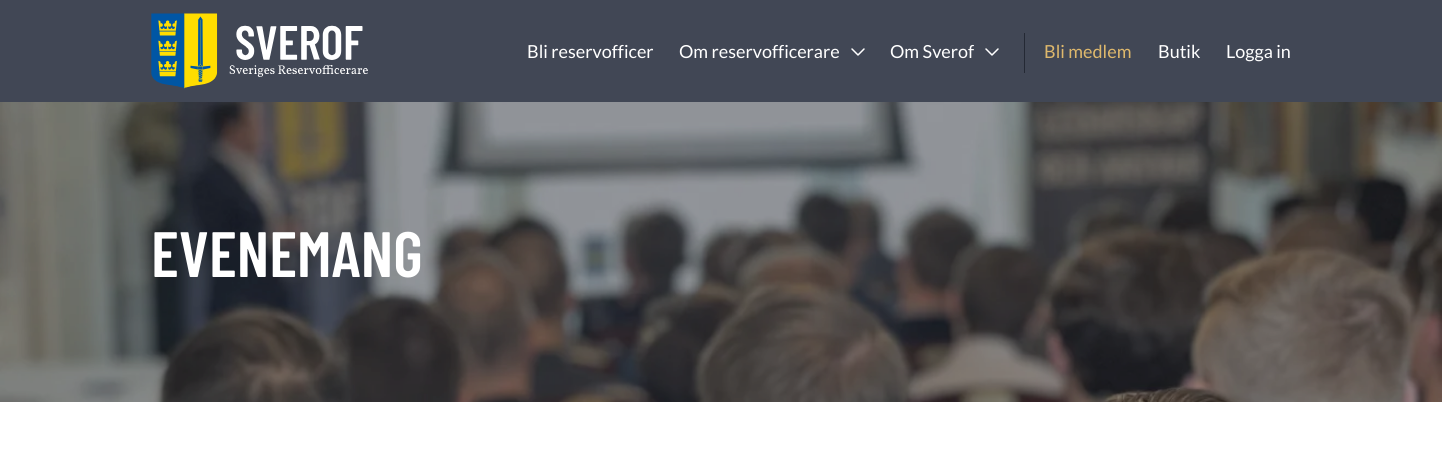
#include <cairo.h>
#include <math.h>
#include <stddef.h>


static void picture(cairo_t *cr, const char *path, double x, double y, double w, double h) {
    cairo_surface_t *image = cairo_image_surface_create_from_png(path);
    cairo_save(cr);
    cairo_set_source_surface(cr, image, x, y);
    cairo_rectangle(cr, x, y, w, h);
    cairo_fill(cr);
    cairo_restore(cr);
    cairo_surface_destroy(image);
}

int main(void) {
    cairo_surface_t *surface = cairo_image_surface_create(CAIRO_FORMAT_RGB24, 1442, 470);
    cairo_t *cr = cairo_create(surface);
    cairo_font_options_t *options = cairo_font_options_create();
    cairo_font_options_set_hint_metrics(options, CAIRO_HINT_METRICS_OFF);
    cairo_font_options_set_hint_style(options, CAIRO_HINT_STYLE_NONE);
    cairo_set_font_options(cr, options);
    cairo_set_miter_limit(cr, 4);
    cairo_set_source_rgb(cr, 1, 1, 1);
    cairo_paint(cr);
    cairo_set_source_rgb(cr, 0.255, 0.278, 0.333);
    cairo_rectangle(cr, 0, 0, 1442, 102);
    cairo_fill(cr);
    picture(cr, "img1.png", 151, 13, 217, 76);
    cairo_select_font_face(cr, "Lato", CAIRO_FONT_SLANT_NORMAL, CAIRO_FONT_WEIGHT_NORMAL);
    cairo_set_font_size(cr, 18);
    cairo_set_source_rgb(cr, 1, 1, 1);
    cairo_move_to(cr, 527, 58);
    cairo_show_text(cr, "Bli reservofficer");
    cairo_move_to(cr, 679, 58);
    cairo_show_text(cr, "Om reservofficerare");
    picture(cr, "img2.png", 851, 48, 14, 8);
    cairo_move_to(cr, 890, 58);
    cairo_show_text(cr, "Om Sverof");
    picture(cr, "img2.png", 985, 48, 14, 8);
    cairo_set_source_rgb(cr, 0.141, 0.161, 0.204);
    cairo_rectangle(cr, 1024, 33, 1, 40);
    cairo_fill(cr);
    cairo_set_source_rgb(cr, 0.871, 0.722, 0.424);
    cairo_move_to(cr, 1044, 58);
    cairo_show_text(cr, "Bli medlem");
    cairo_set_source_rgb(cr, 1, 1, 1);
    cairo_move_to(cr, 1158, 58);
    cairo_show_text(cr, "Butik");
    cairo_move_to(cr, 1226, 58);
    cairo_show_text(cr, "Logga in");
    picture(cr, "img3.png", 0, 102, 1442, 300);
    cairo_select_font_face(cr, "Barlow Condensed SemiBold", CAIRO_FONT_SLANT_NORMAL, CAIRO_FONT_WEIGHT_NORMAL);
    cairo_set_font_size(cr, 64);
    cairo_move_to(cr, 151, 277);
    cairo_show_text(cr, "EVENEMANG");
    cairo_surface_write_to_png(surface, "page.png");
    cairo_font_options_destroy(options);
    cairo_destroy(cr);
    cairo_surface_destroy(surface);
    return 0;
}
